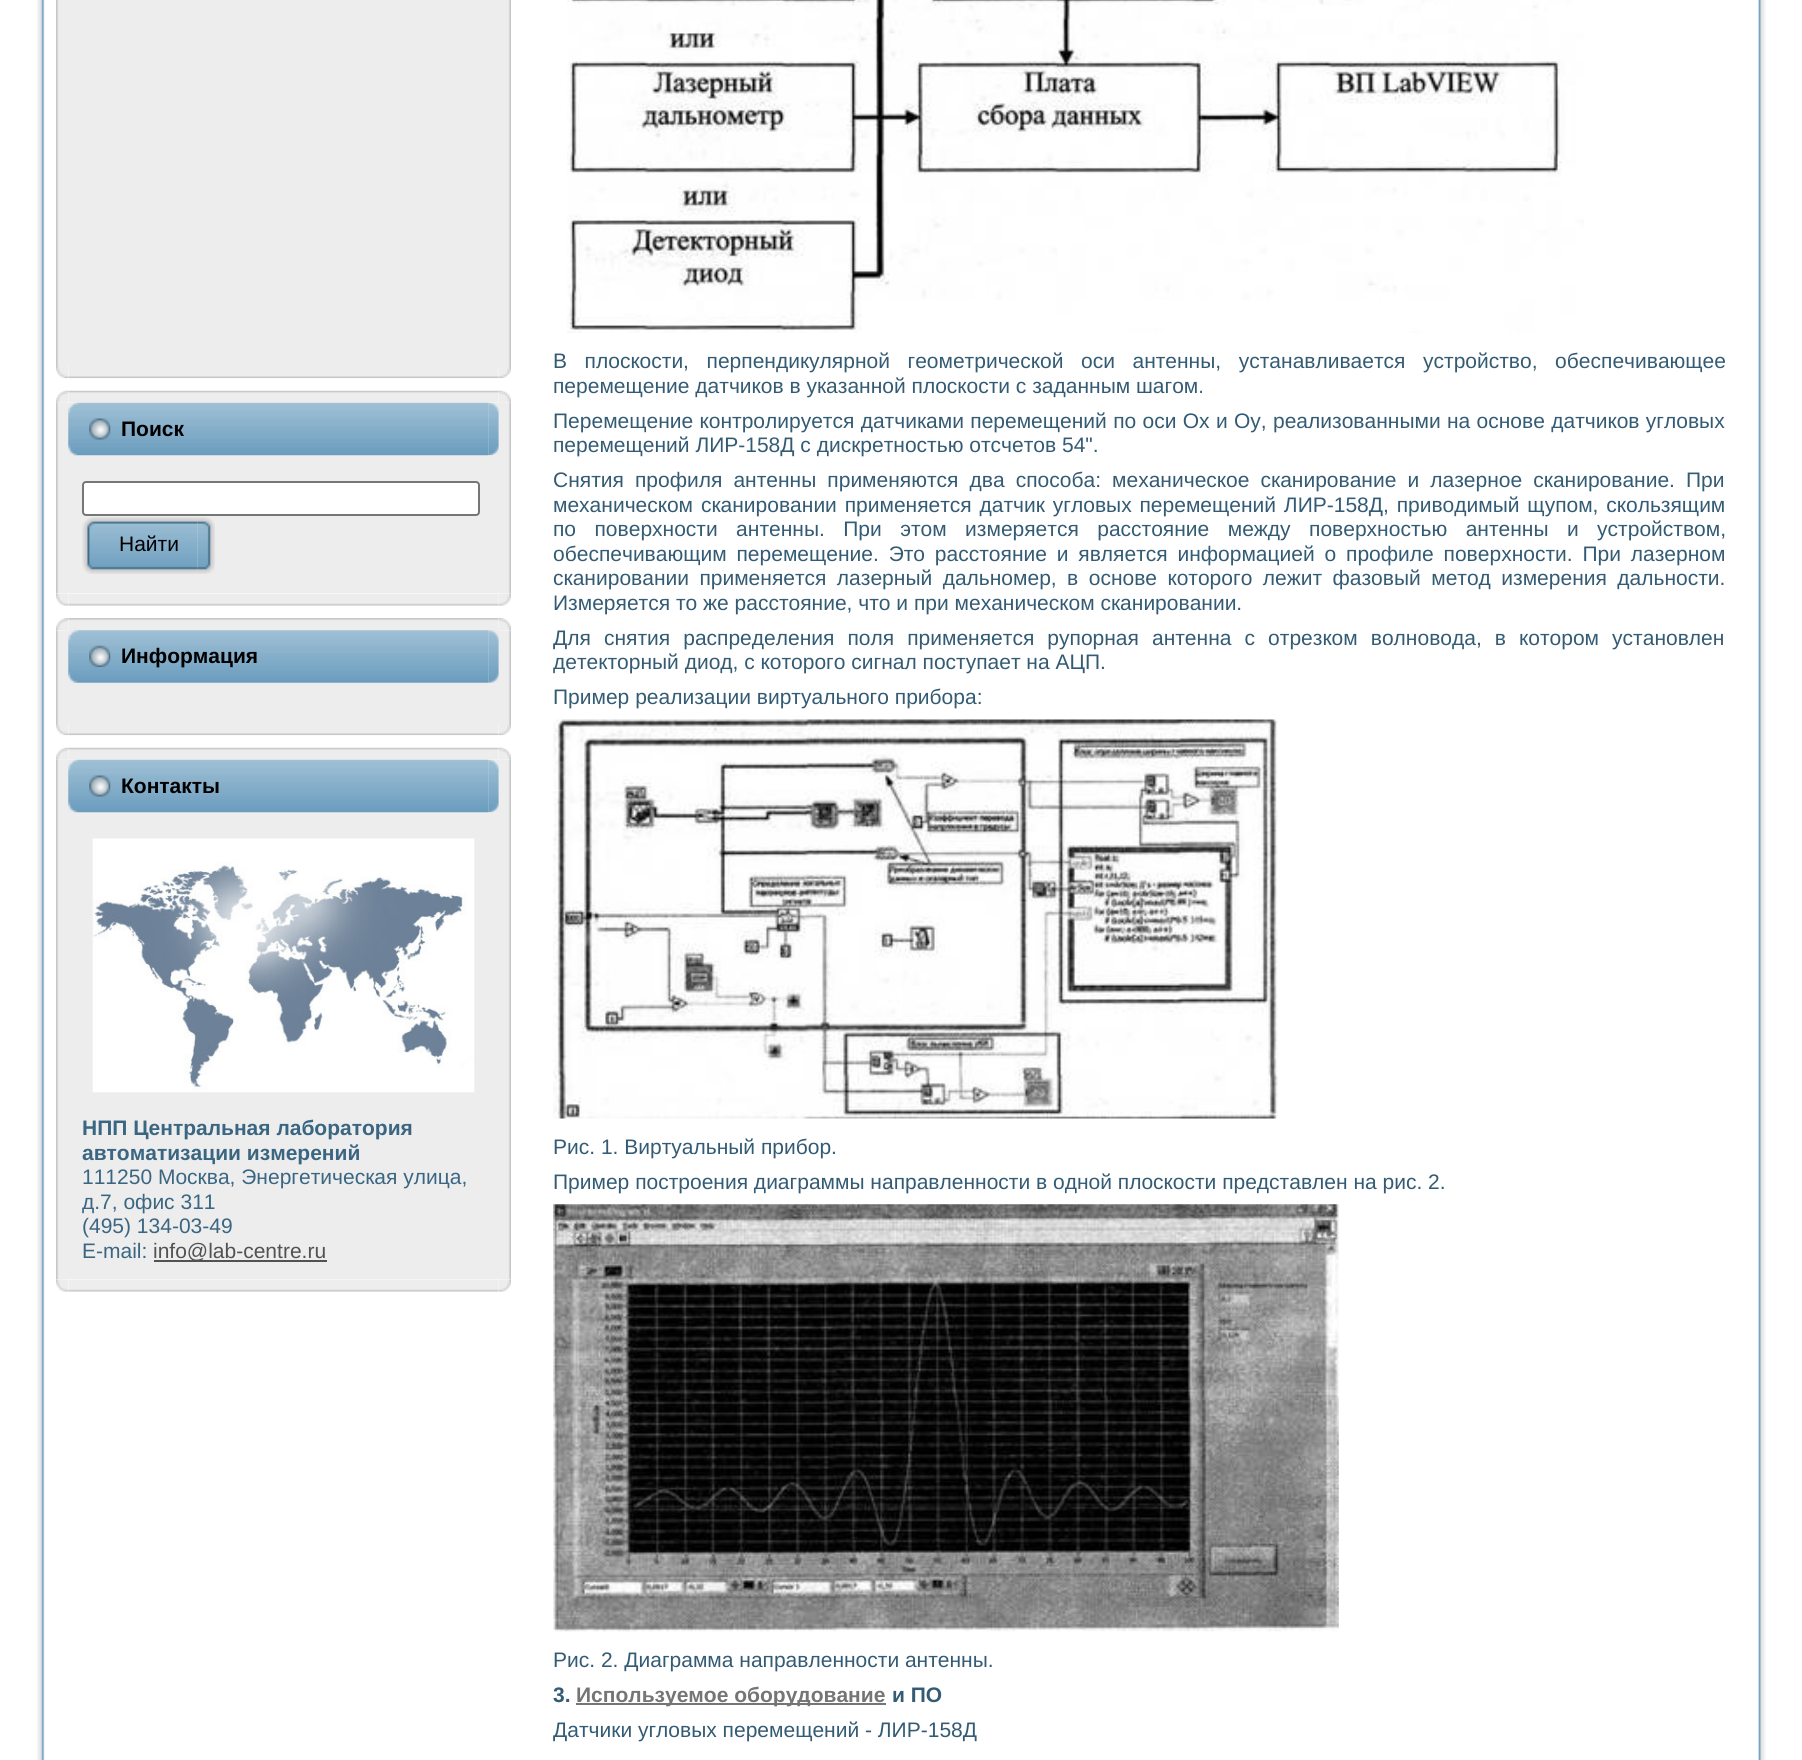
#include <cairo.h>
#include <math.h>
#include <stddef.h>


static void spaced_text(cairo_t *cr, double x, double y, const char *s, double letter, double word) {
    cairo_move_to(cr, x, y);
    while (*s) {
        char ch[5] = {0};
        int n = 0;
        do ch[n++] = *s++; while ((*s & 0xC0) == 0x80);
        cairo_show_text(cr, ch);
        cairo_rel_move_to(cr, letter + word * (*ch == ' '), 0);
    }
}

static void round_rect(cairo_t *cr, double x, double y, double w, double h, double r) {
    cairo_new_sub_path(cr);
    cairo_arc(cr, x + w - r, y + h - r, r, 0, M_PI / 2);
    cairo_arc(cr, x + r, y + h - r, r, M_PI / 2, M_PI);
    cairo_arc(cr, x + r, y + r, r, M_PI, 1.5 * M_PI);
    cairo_arc(cr, x + w - r, y + r, r, 1.5 * M_PI, 2 * M_PI);
    cairo_close_path(cr);
}

static void picture(cairo_t *cr, const char *path, double x, double y, double w, double h) {
    cairo_surface_t *image = cairo_image_surface_create_from_png(path);
    cairo_save(cr);
    cairo_set_source_surface(cr, image, x, y);
    cairo_rectangle(cr, x, y, w, h);
    cairo_fill(cr);
    cairo_restore(cr);
    cairo_surface_destroy(image);
}

int main(void) {
    cairo_surface_t *surface = cairo_image_surface_create(CAIRO_FORMAT_RGB24, 1802, 1760);
    cairo_t *cr = cairo_create(surface);
    cairo_font_options_t *options = cairo_font_options_create();
    cairo_font_options_set_hint_metrics(options, CAIRO_HINT_METRICS_OFF);
    cairo_font_options_set_hint_style(options, CAIRO_HINT_STYLE_NONE);
    cairo_set_font_options(cr, options);
    cairo_set_miter_limit(cr, 4);
    cairo_set_source_rgb(cr, 1, 1, 1);
    cairo_paint(cr);
    picture(cr, "img1.png", 37, 0, 8, 1760);
    picture(cr, "img2.png", 56, 0, 12, 366);
    cairo_set_source_rgb(cr, 0.929, 0.929, 0.929);
    cairo_rectangle(cr, 68, 0, 431, 366);
    cairo_fill(cr);
    picture(cr, "img3.png", 499, 0, 12, 366);
    picture(cr, "img4.png", 56, 366, 13, 13);
    picture(cr, "img6.png", 498, 366, 13, 13);
    picture(cr, "img5.png", 68, 366, 431, 13);
    picture(cr, "img7.png", 56, 390, 13, 13);
    picture(cr, "img9.png", 498, 390, 13, 13);
    picture(cr, "img8.png", 68, 390, 431, 13);
    picture(cr, "img17.png", 56, 593, 13, 13);
    picture(cr, "img19.png", 498, 593, 13, 13);
    picture(cr, "img18.png", 68, 593, 431, 13);
    picture(cr, "img10.png", 56, 403, 13, 191);
    picture(cr, "img11.png", 498, 403, 13, 191);
    cairo_rectangle(cr, 68, 403, 431, 190);
    cairo_fill(cr);
    picture(cr, "img12.png", 68, 402, 421, 54);
    picture(cr, "img13.png", 488, 402, 11, 54);
    picture(cr, "img14.png", 89, 418, 22, 22);
    cairo_select_font_face(cr, "Liberation Sans", CAIRO_FONT_SLANT_NORMAL, CAIRO_FONT_WEIGHT_BOLD);
    cairo_set_font_size(cr, 21);
    cairo_set_source_rgb(cr, 0, 0, 0);
    cairo_move_to(cr, 121, 436);
    cairo_show_text(cr, "Поиск");
    cairo_set_source_rgb(cr, 1, 1, 1);
    round_rect(cr, 83, 482, 396, 33, 3);
    cairo_fill_preserve(cr);
    cairo_set_source_rgb(cr, 0.463, 0.463, 0.463);
    cairo_stroke(cr);
    picture(cr, "img15.png", 82, 517, 116, 57);
    picture(cr, "img16.png", 197, 517, 18, 57);
    cairo_select_font_face(cr, "Liberation Sans", CAIRO_FONT_SLANT_NORMAL, CAIRO_FONT_WEIGHT_NORMAL);
    cairo_set_source_rgb(cr, 0, 0, 0);
    cairo_move_to(cr, 119, 551);
    cairo_show_text(cr, "Найти");
    picture(cr, "img20.png", 56, 618, 13, 13);
    picture(cr, "img22.png", 498, 618, 13, 13);
    picture(cr, "img21.png", 68, 618, 431, 12);
    picture(cr, "img23.png", 56, 630, 12, 93);
    cairo_set_source_rgb(cr, 0.929, 0.929, 0.929);
    cairo_rectangle(cr, 68, 630, 431, 93);
    cairo_fill(cr);
    picture(cr, "img24.png", 499, 630, 12, 93);
    picture(cr, "img25.png", 68, 630, 421, 53);
    picture(cr, "img26.png", 488, 630, 11, 53);
    picture(cr, "img27.png", 89, 645, 22, 22);
    cairo_select_font_face(cr, "Liberation Sans", CAIRO_FONT_SLANT_NORMAL, CAIRO_FONT_WEIGHT_BOLD);
    cairo_set_source_rgb(cr, 0, 0, 0);
    cairo_move_to(cr, 121, 663);
    cairo_show_text(cr, "Информация");
    picture(cr, "img4.png", 56, 723, 13, 13);
    picture(cr, "img6.png", 498, 723, 13, 13);
    picture(cr, "img5.png", 68, 723, 431, 13);
    picture(cr, "img7.png", 56, 747, 13, 13);
    picture(cr, "img9.png", 498, 747, 13, 13);
    picture(cr, "img8.png", 68, 747, 431, 13);
    picture(cr, "img17.png", 56, 1279, 13, 13);
    picture(cr, "img19.png", 498, 1279, 13, 13);
    picture(cr, "img18.png", 68, 1279, 431, 13);
    picture(cr, "img28.png", 56, 760, 13, 520);
    picture(cr, "img29.png", 498, 760, 13, 520);
    cairo_set_source_rgb(cr, 0.929, 0.929, 0.929);
    cairo_rectangle(cr, 68, 760, 431, 519);
    cairo_fill(cr);
    picture(cr, "img12.png", 68, 759, 421, 54);
    picture(cr, "img13.png", 488, 759, 11, 54);
    picture(cr, "img14.png", 89, 775, 22, 22);
    cairo_set_source_rgb(cr, 0, 0, 0);
    cairo_move_to(cr, 121, 793);
    cairo_show_text(cr, "Контакты");
    picture(cr, "img30.png", 92, 838, 383, 255);
    cairo_set_source_rgb(cr, 0.227, 0.4, 0.51);
    cairo_move_to(cr, 82, 1135);
    cairo_show_text(cr, "НПП Центральная лаборатория");
    cairo_move_to(cr, 82, 1160);
    cairo_show_text(cr, "автоматизации измерений");
    cairo_select_font_face(cr, "Liberation Sans", CAIRO_FONT_SLANT_NORMAL, CAIRO_FONT_WEIGHT_NORMAL);
    cairo_move_to(cr, 82, 1184);
    cairo_show_text(cr, "111250 Москва, Энергетическая улица,");
    cairo_move_to(cr, 82, 1209);
    cairo_show_text(cr, "д.7, офис 311");
    cairo_move_to(cr, 82, 1233);
    cairo_show_text(cr, "(495) 134-03-49");
    cairo_move_to(cr, 82, 1258);
    cairo_show_text(cr, "E-mail:");
    cairo_set_source_rgb(cr, 0.322, 0.322, 0.322);
    cairo_rectangle(cr, 154, 1260, 173, 2);
    cairo_fill(cr);
    cairo_move_to(cr, 153, 1258);
    cairo_show_text(cr, "info@lab-centre.ru");
    picture(cr, "img31.png", 567, 0, 1017, 333);
    cairo_set_source_rgb(cr, 0.204, 0.357, 0.455);
    spaced_text(cr, 553, 368, "В плоскости, перпендикулярной геометрической оси антенны, устанавливается устройство, обеспечивающее", 0, 11.75);
    cairo_move_to(cr, 553, 393);
    cairo_show_text(cr, "перемещение датчиков в указанной плоскости с заданным шагом.");
    spaced_text(cr, 553, 428, "Перемещение контролируется датчиками перемещений по оси Ох и Оу, реализованными на основе датчиков угловых", 0, 0.5);
    cairo_move_to(cr, 553, 452);
    cairo_show_text(cr, "перемещений ЛИР-158Д с дискретностью отсчетов 54\".");
    spaced_text(cr, 553, 487, "Снятия профиля антенны применяются два способа: механическое сканирование и лазерное сканирование. При", 0, 5.25);
    spaced_text(cr, 553, 512, "механическом сканировании применяется датчик угловых перемещений ЛИР-158Д, приводимый щупом, скользящим", 0, 2);
    spaced_text(cr, 553, 536, "по поверхности антенны. При этом измеряется расстояние между поверхностью антенны и устройством,", 0, 12.6);
    spaced_text(cr, 553, 561, "обеспечивающим перемещение. Это расстояние и является информацией о профиле поверхности. При лазерном", 0, 4);
    spaced_text(cr, 553, 585, "сканировании применяется лазерный дальномер, в основе которого лежит фазовый метод измерения дальности.", 0, 4.6);
    cairo_move_to(cr, 553, 610);
    cairo_show_text(cr, "Измеряется то же расстояние, что и при механическом сканировании.");
    spaced_text(cr, 553, 645, "Для снятия распределения поля применяется рупорная антенна с отрезком волновода, в котором установлен", 0, 7.25);
    cairo_move_to(cr, 553, 669);
    cairo_show_text(cr, "детекторный диод, с которого сигнал поступает на АЦП.");
    cairo_move_to(cr, 553, 704);
    cairo_show_text(cr, "Пример реализации виртуального прибора:");
    picture(cr, "img32.png", 553, 719, 725, 400);
    cairo_move_to(cr, 553, 1154);
    cairo_show_text(cr, "Рис. 1. Виртуальный прибор.");
    cairo_move_to(cr, 553, 1189);
    cairo_show_text(cr, "Пример построения диаграммы направленности в одной плоскости представлен на рис. 2.");
    picture(cr, "img33.png", 553, 1204, 786, 428);
    cairo_move_to(cr, 553, 1667);
    cairo_show_text(cr, "Рис. 2. Диаграмма направленности антенны.");
    cairo_select_font_face(cr, "Liberation Sans", CAIRO_FONT_SLANT_NORMAL, CAIRO_FONT_WEIGHT_BOLD);
    cairo_move_to(cr, 553, 1702);
    cairo_show_text(cr, "3.");
    cairo_set_source_rgb(cr, 0.459, 0.459, 0.459);
    cairo_rectangle(cr, 576, 1703, 310, 2);
    cairo_fill(cr);
    cairo_move_to(cr, 576, 1702);
    cairo_show_text(cr, "Используемое оборудование");
    cairo_set_source_rgb(cr, 0.204, 0.357, 0.455);
    cairo_move_to(cr, 892, 1702);
    cairo_show_text(cr, "и ПО");
    cairo_select_font_face(cr, "Liberation Sans", CAIRO_FONT_SLANT_NORMAL, CAIRO_FONT_WEIGHT_NORMAL);
    cairo_move_to(cr, 553, 1737);
    cairo_show_text(cr, "Датчики угловых перемещений - ЛИР-158Д");
    picture(cr, "img34.png", 1758, 0, 8, 1760);
    cairo_surface_write_to_png(surface, "page.png");
    cairo_font_options_destroy(options);
    cairo_destroy(cr);
    cairo_surface_destroy(surface);
    return 0;
}
